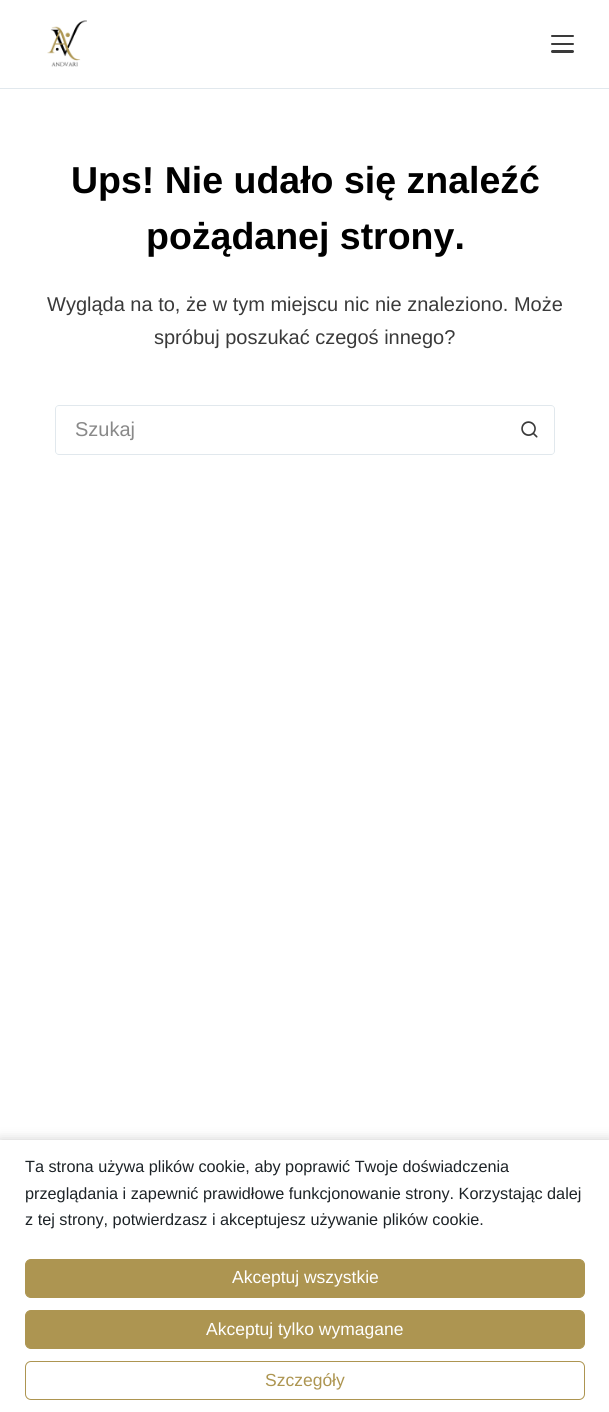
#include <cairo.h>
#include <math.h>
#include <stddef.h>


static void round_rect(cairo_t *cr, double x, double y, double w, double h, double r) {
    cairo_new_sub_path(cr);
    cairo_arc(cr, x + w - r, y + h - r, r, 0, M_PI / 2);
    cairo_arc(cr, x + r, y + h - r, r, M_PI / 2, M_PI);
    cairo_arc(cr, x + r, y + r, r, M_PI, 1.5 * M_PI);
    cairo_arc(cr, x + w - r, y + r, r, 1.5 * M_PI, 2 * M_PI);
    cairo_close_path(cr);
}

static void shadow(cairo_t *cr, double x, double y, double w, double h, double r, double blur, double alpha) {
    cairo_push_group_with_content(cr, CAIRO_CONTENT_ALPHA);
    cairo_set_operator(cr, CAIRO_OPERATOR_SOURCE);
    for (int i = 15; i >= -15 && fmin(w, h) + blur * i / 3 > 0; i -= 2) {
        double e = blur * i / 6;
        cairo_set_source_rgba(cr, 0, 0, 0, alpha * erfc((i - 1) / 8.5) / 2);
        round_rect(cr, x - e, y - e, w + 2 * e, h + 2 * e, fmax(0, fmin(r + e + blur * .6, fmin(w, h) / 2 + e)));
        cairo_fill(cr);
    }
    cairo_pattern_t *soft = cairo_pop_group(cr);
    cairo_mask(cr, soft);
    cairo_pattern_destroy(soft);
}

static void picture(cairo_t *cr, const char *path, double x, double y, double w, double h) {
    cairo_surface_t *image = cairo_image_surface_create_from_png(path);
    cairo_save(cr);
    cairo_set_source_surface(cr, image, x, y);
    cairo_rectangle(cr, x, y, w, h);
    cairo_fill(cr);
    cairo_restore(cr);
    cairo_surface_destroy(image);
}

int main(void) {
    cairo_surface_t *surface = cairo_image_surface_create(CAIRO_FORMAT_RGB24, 609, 1412);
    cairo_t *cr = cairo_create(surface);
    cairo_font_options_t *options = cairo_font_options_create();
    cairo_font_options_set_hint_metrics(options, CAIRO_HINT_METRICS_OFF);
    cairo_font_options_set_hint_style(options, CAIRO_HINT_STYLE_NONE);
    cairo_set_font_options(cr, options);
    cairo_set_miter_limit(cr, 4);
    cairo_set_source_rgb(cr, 1, 1, 1);
    cairo_paint(cr);
    cairo_set_source_rgb(cr, 0.882, 0.91, 0.929);
    cairo_rectangle(cr, 0, 88, 609, 1);
    cairo_fill(cr);
    picture(cr, "img1.png", 47, 20, 40, 47);
    cairo_set_source_rgb(cr, 0.227, 0.227, 0.227);
    round_rect(cr, 551, 35, 23, 2, 1);
    cairo_fill(cr);
    round_rect(cr, 551, 43, 23, 2, 1);
    cairo_fill(cr);
    round_rect(cr, 551, 50, 23, 3, 1.5);
    cairo_fill(cr);
    cairo_select_font_face(cr, "Liberation Sans", CAIRO_FONT_SLANT_NORMAL, CAIRO_FONT_WEIGHT_BOLD);
    cairo_set_font_size(cr, 37.5);
    cairo_set_source_rgb(cr, 0, 0, 0);
    cairo_move_to(cr, 71, 193);
    cairo_show_text(cr, "Ups! Nie udało się znaleźć");
    cairo_move_to(cr, 146, 249);
    cairo_show_text(cr, "pożądanej strony.");
    cairo_select_font_face(cr, "Liberation Sans", CAIRO_FONT_SLANT_NORMAL, CAIRO_FONT_WEIGHT_NORMAL);
    cairo_set_font_size(cr, 20);
    cairo_set_source_rgb(cr, 0.227, 0.227, 0.227);
    cairo_move_to(cr, 47, 311);
    cairo_show_text(cr, "Wygląda na to, że w tym miejscu nic nie znaleziono. Może");
    cairo_move_to(cr, 154, 344);
    cairo_show_text(cr, "spróbuj poszukać czegoś innego?");
    cairo_set_source_rgb(cr, 0.882, 0.91, 0.929);
    cairo_set_fill_rule(cr, CAIRO_FILL_RULE_EVEN_ODD);
    cairo_new_path(cr);
    cairo_move_to(cr, 59, 405);
    cairo_line_to(cr, 505, 405);
    cairo_line_to(cr, 505, 455);
    cairo_line_to(cr, 59, 455);
    cairo_curve_to(cr, 57, 455, 55, 453, 55, 451);
    cairo_line_to(cr, 55, 409);
    cairo_curve_to(cr, 55, 407, 57, 405, 59, 405);
    cairo_close_path(cr);
    cairo_move_to(cr, 59, 406);
    cairo_line_to(cr, 505, 406);
    cairo_line_to(cr, 505, 454);
    cairo_line_to(cr, 59, 454);
    cairo_curve_to(cr, 57, 454, 56, 453, 56, 451);
    cairo_line_to(cr, 56, 409);
    cairo_curve_to(cr, 56, 407, 57, 406, 59, 406);
    cairo_close_path(cr);
    cairo_fill(cr);
    cairo_set_source_rgb(cr, 0.537, 0.537, 0.537);
    cairo_move_to(cr, 75, 436);
    cairo_show_text(cr, "Szukaj");
    cairo_set_source_rgb(cr, 0.882, 0.91, 0.929);
    cairo_new_path(cr);
    cairo_move_to(cr, 505, 405);
    cairo_line_to(cr, 551, 405);
    cairo_curve_to(cr, 553, 405, 555, 407, 555, 409);
    cairo_line_to(cr, 555, 451);
    cairo_curve_to(cr, 555, 453, 553, 455, 551, 455);
    cairo_line_to(cr, 505, 455);
    cairo_close_path(cr);
    cairo_move_to(cr, 505, 406);
    cairo_line_to(cr, 551, 406);
    cairo_curve_to(cr, 553, 406, 554, 407, 554, 409);
    cairo_line_to(cr, 554, 451);
    cairo_curve_to(cr, 554, 453, 553, 454, 551, 454);
    cairo_line_to(cr, 505, 454);
    cairo_close_path(cr);
    cairo_fill(cr);
    picture(cr, "img2.png", 521, 421, 17, 17);
    cairo_set_source_rgb(cr, 0, 0, 0);
    shadow(cr, 0, 1140, 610, 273, 0, 6, 0.2);
    cairo_set_source_rgb(cr, 1, 1, 1);
    cairo_rectangle(cr, 0, 1140, 609, 272);
    cairo_fill(cr);
    cairo_set_font_size(cr, 16.25);
    cairo_set_source_rgb(cr, 0.114, 0.137, 0.153);
    cairo_move_to(cr, 25, 1172);
    cairo_show_text(cr, "Ta strona używa plików cookie, aby poprawić Twoje doświadczenia");
    cairo_move_to(cr, 25, 1199);
    cairo_show_text(cr, "przeglądania i zapewnić prawidłowe funkcjonowanie strony. Korzystając dalej");
    cairo_move_to(cr, 25, 1225);
    cairo_show_text(cr, "z tej strony, potwierdzasz i akceptujesz używanie plików cookie.");
    cairo_set_source_rgb(cr, 0.678, 0.584, 0.318);
    round_rect(cr, 25.5, 1259.5, 559, 38, 5.5);
    cairo_fill_preserve(cr);
    cairo_set_line_width(cr, 1);
    cairo_stroke(cr);
    cairo_set_font_size(cr, 17.5);
    cairo_set_source_rgb(cr, 1, 1, 1);
    cairo_move_to(cr, 232, 1283);
    cairo_show_text(cr, "Akceptuj wszystkie");
    cairo_set_source_rgb(cr, 0.678, 0.584, 0.318);
    round_rect(cr, 25.5, 1310.5, 559, 38, 5.5);
    cairo_fill_preserve(cr);
    cairo_stroke(cr);
    cairo_set_source_rgb(cr, 1, 1, 1);
    cairo_move_to(cr, 206, 1335);
    cairo_show_text(cr, "Akceptuj tylko wymagane");
    round_rect(cr, 25.5, 1361.5, 559, 38, 5.5);
    cairo_set_source_rgb(cr, 0.678, 0.584, 0.318);
    cairo_stroke(cr);
    cairo_move_to(cr, 265, 1386);
    cairo_show_text(cr, "Szczegóły");
    cairo_surface_write_to_png(surface, "page.png");
    cairo_font_options_destroy(options);
    cairo_destroy(cr);
    cairo_surface_destroy(surface);
    return 0;
}
